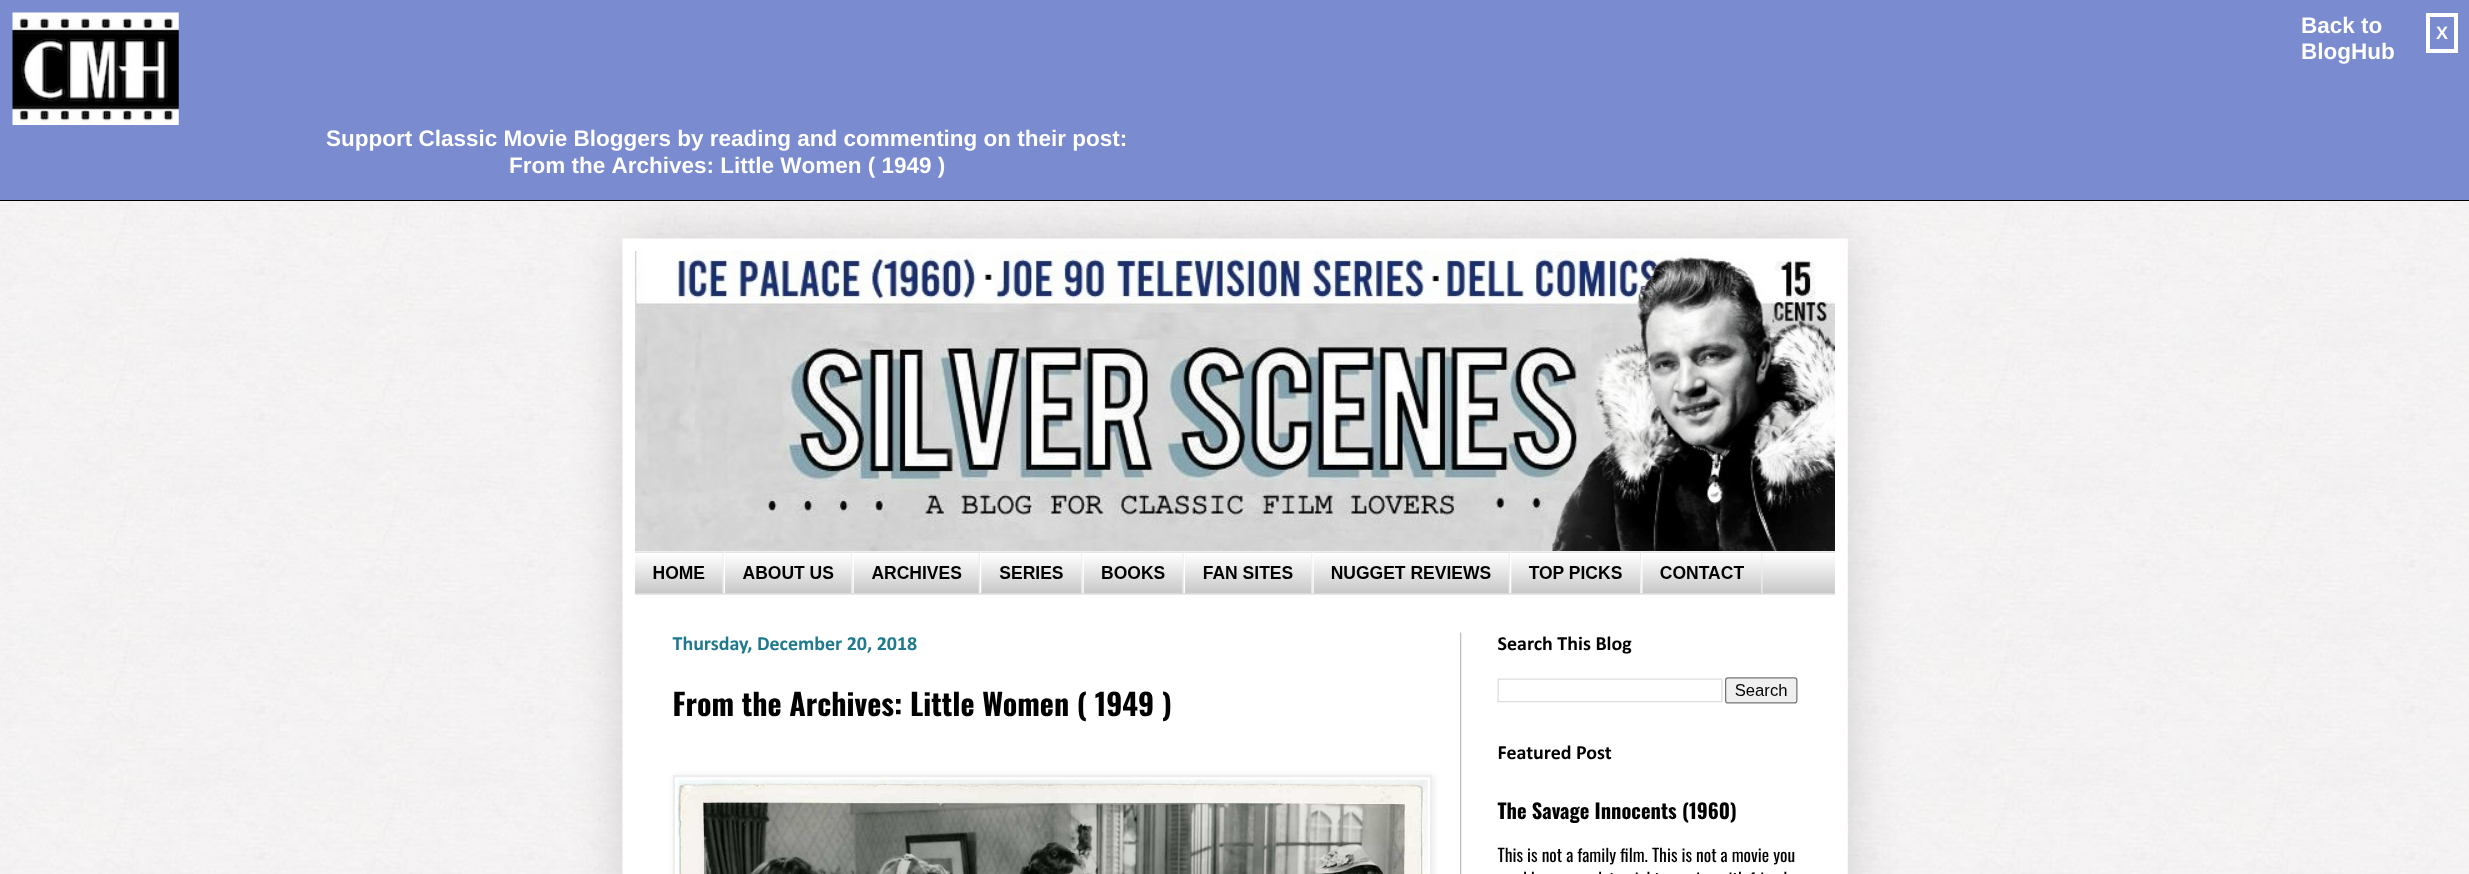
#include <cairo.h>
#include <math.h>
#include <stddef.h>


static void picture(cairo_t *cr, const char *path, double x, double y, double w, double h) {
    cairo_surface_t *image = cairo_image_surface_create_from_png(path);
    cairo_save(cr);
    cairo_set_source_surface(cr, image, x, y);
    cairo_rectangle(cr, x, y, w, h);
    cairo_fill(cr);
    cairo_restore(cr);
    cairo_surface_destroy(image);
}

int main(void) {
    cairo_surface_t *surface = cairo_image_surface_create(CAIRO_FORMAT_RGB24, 2469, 874);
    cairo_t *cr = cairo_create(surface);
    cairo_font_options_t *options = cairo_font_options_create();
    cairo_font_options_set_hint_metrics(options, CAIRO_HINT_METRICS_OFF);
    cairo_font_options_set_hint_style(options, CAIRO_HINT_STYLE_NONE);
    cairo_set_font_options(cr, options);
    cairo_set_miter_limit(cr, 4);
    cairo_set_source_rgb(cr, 0, 0, 0);
    cairo_paint(cr);
    cairo_set_source_rgb(cr, 0.478, 0.545, 0.816);
    cairo_rectangle(cr, 0, 0, 2469, 200);
    cairo_fill(cr);
    picture(cr, "img1.png", 12, 12, 167, 113);
    cairo_select_font_face(cr, "Liberation Sans", CAIRO_FONT_SLANT_NORMAL, CAIRO_FONT_WEIGHT_BOLD);
    cairo_set_font_size(cr, 22.5);
    cairo_set_source_rgb(cr, 1, 1, 1);
    cairo_move_to(cr, 2301, 33);
    cairo_show_text(cr, "Back to");
    cairo_move_to(cr, 2301, 59);
    cairo_show_text(cr, "BlogHub");
    cairo_rectangle(cr, 2428, 15, 28, 36);
    cairo_set_line_width(cr, 4);
    cairo_stroke(cr);
    cairo_set_font_size(cr, 18);
    cairo_move_to(cr, 2436, 39);
    cairo_show_text(cr, "X");
    cairo_set_font_size(cr, 22.5);
    cairo_move_to(cr, 326, 146);
    cairo_show_text(cr, "Support Classic Movie Bloggers by reading and commenting on their post:");
    cairo_move_to(cr, 509, 173);
    cairo_show_text(cr, "From the Archives: Little Women ( 1949 )");
    picture(cr, "img2.png", 0, 201, 2469, 673);
    cairo_surface_write_to_png(surface, "page.png");
    cairo_font_options_destroy(options);
    cairo_destroy(cr);
    cairo_surface_destroy(surface);
    return 0;
}
